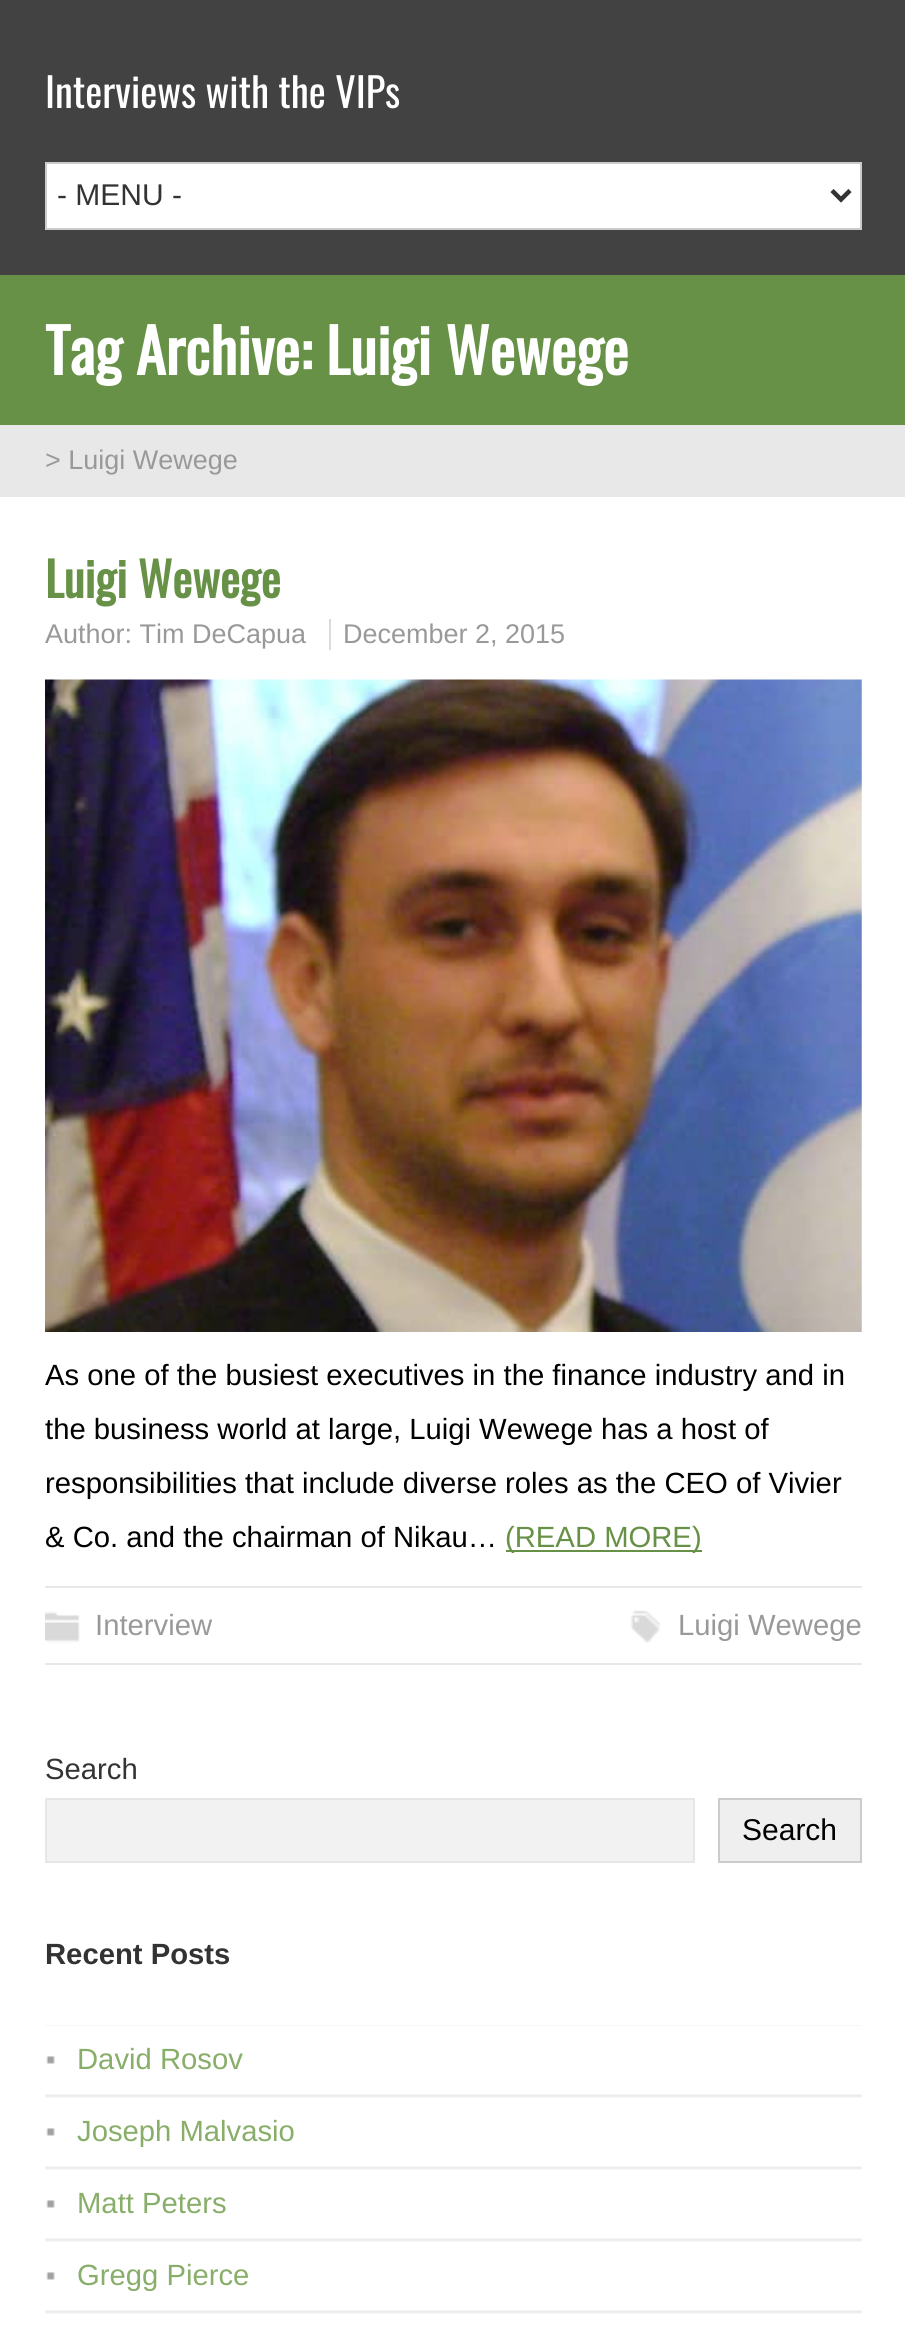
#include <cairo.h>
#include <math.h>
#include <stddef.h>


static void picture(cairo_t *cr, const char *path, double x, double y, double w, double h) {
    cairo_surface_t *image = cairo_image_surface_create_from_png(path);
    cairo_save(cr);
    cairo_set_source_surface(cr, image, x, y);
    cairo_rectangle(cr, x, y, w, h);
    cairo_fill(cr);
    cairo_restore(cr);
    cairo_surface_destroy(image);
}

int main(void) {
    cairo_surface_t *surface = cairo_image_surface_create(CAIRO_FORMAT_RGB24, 905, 2335);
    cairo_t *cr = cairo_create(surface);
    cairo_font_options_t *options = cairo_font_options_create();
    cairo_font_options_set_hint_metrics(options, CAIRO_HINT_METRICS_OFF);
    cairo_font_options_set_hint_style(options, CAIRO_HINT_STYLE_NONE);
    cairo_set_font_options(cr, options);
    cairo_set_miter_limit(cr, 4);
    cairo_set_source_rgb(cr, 1, 1, 1);
    cairo_paint(cr);
    cairo_set_source_rgb(cr, 0.259, 0.259, 0.259);
    cairo_rectangle(cr, 0, 0, 905, 275);
    cairo_fill(cr);
    cairo_select_font_face(cr, "Oswald", CAIRO_FONT_SLANT_NORMAL, CAIRO_FONT_WEIGHT_NORMAL);
    cairo_set_font_size(cr, 40.5);
    cairo_set_source_rgb(cr, 1, 1, 1);
    cairo_move_to(cr, 45, 108);
    cairo_show_text(cr, "Interviews with the VIPs");
    cairo_rectangle(cr, 46, 163, 815, 66);
    cairo_fill_preserve(cr);
    cairo_set_source_rgb(cr, 0.8, 0.8, 0.8);
    cairo_stroke(cr);
    cairo_new_path(cr);
    cairo_move_to(cr, 832, 190.5);
    cairo_line_to(cr, 841, 199.5);
    cairo_line_to(cr, 850, 190.5);
    cairo_set_source_rgb(cr, 0.2, 0.2, 0.2);
    cairo_set_line_width(cr, 4.5);
    cairo_stroke(cr);
    cairo_select_font_face(cr, "Liberation Sans", CAIRO_FONT_SLANT_NORMAL, CAIRO_FONT_WEIGHT_NORMAL);
    cairo_set_font_size(cr, 30);
    cairo_move_to(cr, 57, 205);
    cairo_show_text(cr, "- MENU -");
    cairo_set_source_rgb(cr, 0.404, 0.569, 0.275);
    cairo_rectangle(cr, 0, 275, 905, 150);
    cairo_fill(cr);
    cairo_select_font_face(cr, "Oswald", CAIRO_FONT_SLANT_NORMAL, CAIRO_FONT_WEIGHT_BOLD);
    cairo_set_font_size(cr, 60.75);
    cairo_set_source_rgb(cr, 1, 1, 1);
    cairo_move_to(cr, 45, 375);
    cairo_show_text(cr, "Tag Archive: Luigi Wewege");
    cairo_set_source_rgb(cr, 0.91, 0.91, 0.91);
    cairo_rectangle(cr, 0, 425, 905, 72);
    cairo_fill(cr);
    cairo_select_font_face(cr, "Liberation Sans", CAIRO_FONT_SLANT_NORMAL, CAIRO_FONT_WEIGHT_NORMAL);
    cairo_set_font_size(cr, 27);
    cairo_set_source_rgb(cr, 0.6, 0.6, 0.6);
    cairo_move_to(cr, 45, 469);
    cairo_show_text(cr, "> Luigi Wewege");
    cairo_set_source_rgb(cr, 0.91, 0.91, 0.91);
    cairo_rectangle(cr, 45, 1663, 817, 2);
    cairo_fill(cr);
    cairo_select_font_face(cr, "Oswald", CAIRO_FONT_SLANT_NORMAL, CAIRO_FONT_WEIGHT_BOLD);
    cairo_set_font_size(cr, 47.25);
    cairo_set_source_rgb(cr, 0.404, 0.569, 0.275);
    cairo_move_to(cr, 45, 598);
    cairo_show_text(cr, "Luigi Wewege");
    cairo_select_font_face(cr, "Liberation Sans", CAIRO_FONT_SLANT_NORMAL, CAIRO_FONT_WEIGHT_NORMAL);
    cairo_set_font_size(cr, 27);
    cairo_set_source_rgb(cr, 0.6, 0.6, 0.6);
    cairo_move_to(cr, 45, 643);
    cairo_show_text(cr, "Author: Tim DeCapua");
    cairo_move_to(cr, 343, 643);
    cairo_show_text(cr, "December 2, 2015");
    cairo_set_source_rgb(cr, 0.859, 0.859, 0.859);
    cairo_rectangle(cr, 329, 619, 2, 31);
    cairo_fill(cr);
    picture(cr, "img1.png", 45, 679, 817, 653);
    cairo_set_font_size(cr, 29.25);
    cairo_set_source_rgb(cr, 0, 0, 0);
    cairo_move_to(cr, 45, 1385);
    cairo_show_text(cr, "As one of the busiest executives in the finance industry and in");
    cairo_move_to(cr, 45, 1439);
    cairo_show_text(cr, "the business world at large, Luigi Wewege has a host of");
    cairo_move_to(cr, 45, 1493);
    cairo_show_text(cr, "responsibilities that include diverse roles as the CEO of Vivier");
    cairo_move_to(cr, 45, 1547);
    cairo_show_text(cr, "& Co. and the chairman of Nikau…");
    cairo_set_source_rgb(cr, 0.404, 0.569, 0.275);
    cairo_rectangle(cr, 506, 1550, 196, 2);
    cairo_fill(cr);
    cairo_move_to(cr, 505, 1547);
    cairo_show_text(cr, "(READ MORE)");
    cairo_set_source_rgb(cr, 0.91, 0.91, 0.91);
    cairo_rectangle(cr, 45, 1586, 817, 2);
    cairo_fill(cr);
    picture(cr, "img2.png", 45, 1611, 35, 32);
    cairo_set_source_rgb(cr, 0.6, 0.6, 0.6);
    cairo_move_to(cr, 95, 1635);
    cairo_show_text(cr, "Interview");
    picture(cr, "img3.png", 630, 1610, 31, 33);
    cairo_move_to(cr, 678, 1635);
    cairo_show_text(cr, "Luigi Wewege");
    cairo_set_source_rgb(cr, 0.2, 0.2, 0.2);
    cairo_move_to(cr, 45, 1779);
    cairo_show_text(cr, "Search");
    cairo_set_source_rgb(cr, 0.949, 0.949, 0.949);
    cairo_rectangle(cr, 46, 1799, 648, 63);
    cairo_fill_preserve(cr);
    cairo_set_source_rgb(cr, 0.902, 0.902, 0.902);
    cairo_set_line_width(cr, 2);
    cairo_stroke(cr);
    cairo_set_source_rgb(cr, 0.937, 0.937, 0.937);
    cairo_rectangle(cr, 719, 1799, 142, 63);
    cairo_fill_preserve(cr);
    cairo_set_source_rgb(cr, 0.8, 0.8, 0.8);
    cairo_stroke(cr);
    cairo_set_font_size(cr, 30);
    cairo_set_source_rgb(cr, 0, 0, 0);
    cairo_move_to(cr, 742, 1840);
    cairo_show_text(cr, "Search");
    cairo_select_font_face(cr, "Liberation Sans", CAIRO_FONT_SLANT_NORMAL, CAIRO_FONT_WEIGHT_BOLD);
    cairo_set_font_size(cr, 29.25);
    cairo_set_source_rgb(cr, 0.2, 0.2, 0.2);
    cairo_move_to(cr, 45, 1964);
    cairo_show_text(cr, "Recent Posts");
    picture(cr, "img4.png", 45, 2025, 817, 289);
    picture(cr, "img5.png", 46, 2056, 9, 8);
    cairo_select_font_face(cr, "Liberation Sans", CAIRO_FONT_SLANT_NORMAL, CAIRO_FONT_WEIGHT_NORMAL);
    cairo_set_source_rgb(cr, 0.533, 0.682, 0.416);
    cairo_move_to(cr, 77, 2069);
    cairo_show_text(cr, "David Rosov");
    picture(cr, "img5.png", 46, 2128, 9, 8);
    cairo_move_to(cr, 77, 2141);
    cairo_show_text(cr, "Joseph Malvasio");
    picture(cr, "img5.png", 46, 2200, 9, 8);
    cairo_move_to(cr, 77, 2213);
    cairo_show_text(cr, "Matt Peters");
    picture(cr, "img5.png", 46, 2272, 9, 8);
    cairo_move_to(cr, 77, 2285);
    cairo_show_text(cr, "Gregg Pierce");
    cairo_surface_write_to_png(surface, "page.png");
    cairo_font_options_destroy(options);
    cairo_destroy(cr);
    cairo_surface_destroy(surface);
    return 0;
}
